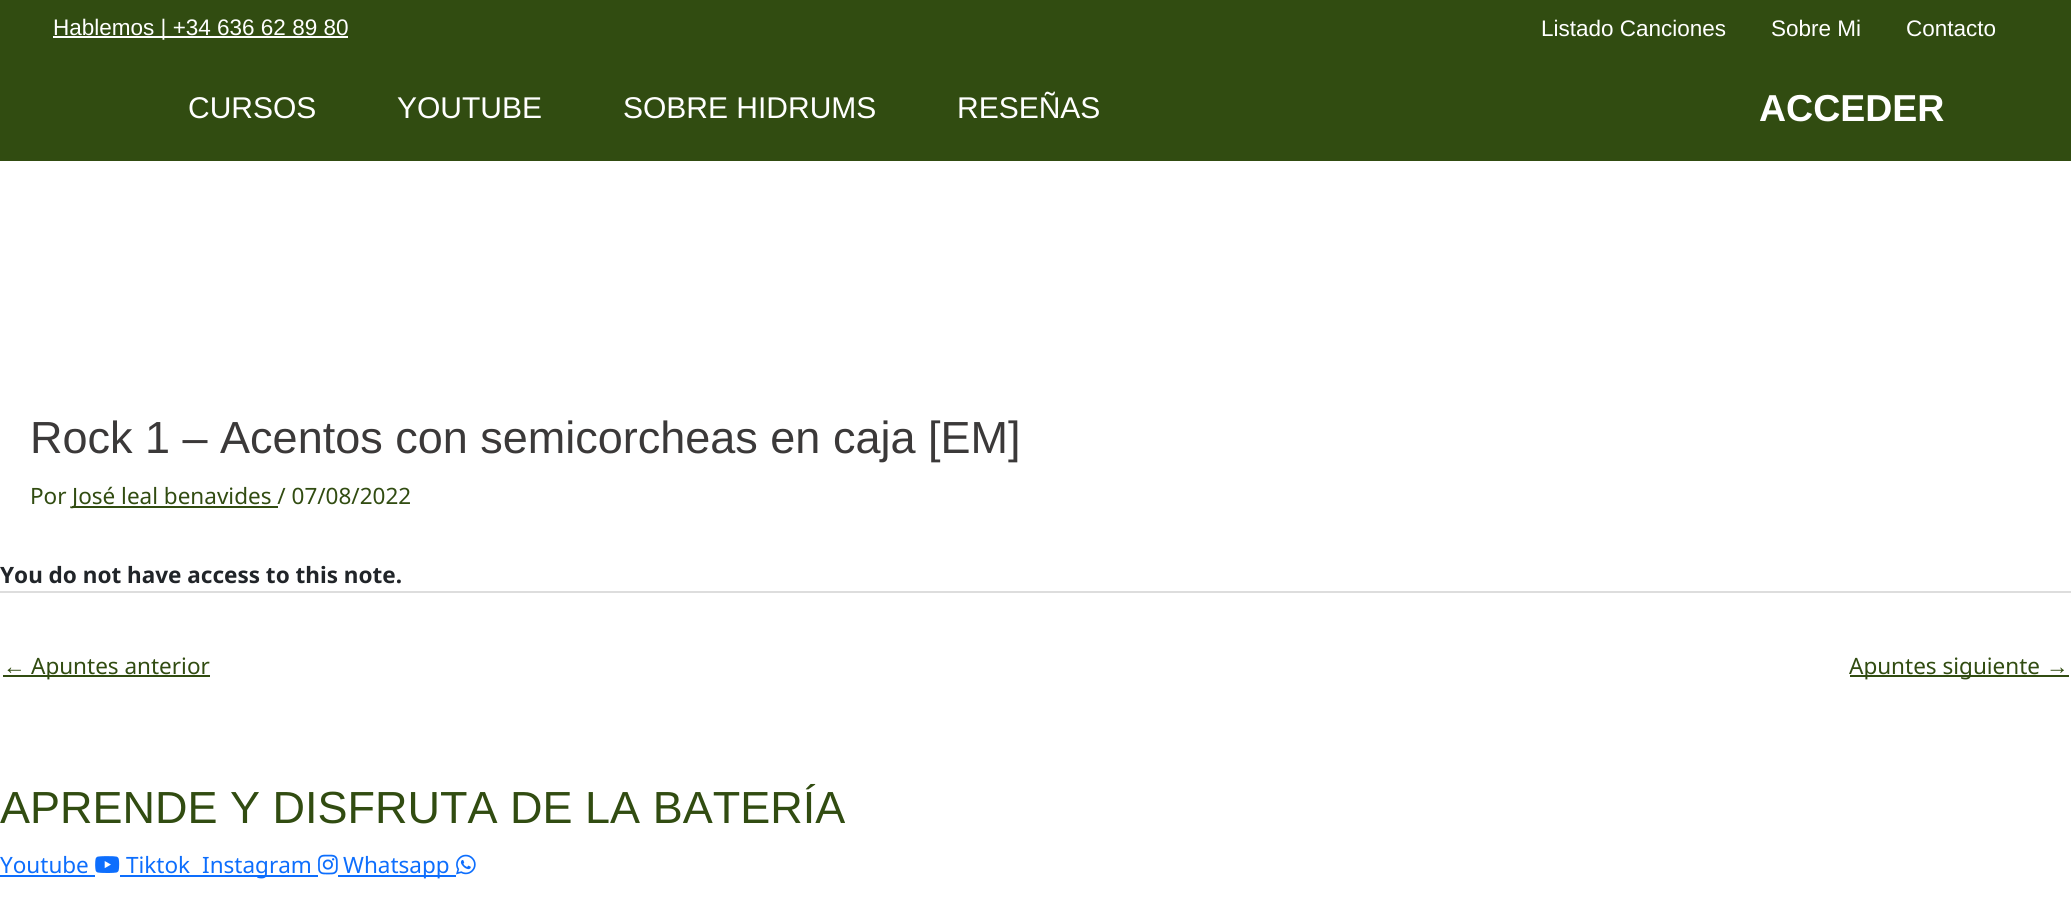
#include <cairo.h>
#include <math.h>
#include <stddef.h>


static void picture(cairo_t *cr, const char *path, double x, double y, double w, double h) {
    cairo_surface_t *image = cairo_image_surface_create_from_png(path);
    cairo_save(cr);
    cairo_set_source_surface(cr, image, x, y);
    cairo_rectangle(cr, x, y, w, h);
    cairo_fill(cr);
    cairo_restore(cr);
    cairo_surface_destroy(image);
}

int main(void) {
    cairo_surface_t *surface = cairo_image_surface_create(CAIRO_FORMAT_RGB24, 2071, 902);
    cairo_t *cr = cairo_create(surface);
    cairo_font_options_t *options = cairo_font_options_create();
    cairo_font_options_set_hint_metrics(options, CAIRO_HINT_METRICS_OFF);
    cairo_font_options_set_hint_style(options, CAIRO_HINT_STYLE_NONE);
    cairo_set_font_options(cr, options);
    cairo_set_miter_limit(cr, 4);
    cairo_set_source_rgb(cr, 1, 1, 1);
    cairo_paint(cr);
    cairo_set_source_rgb(cr, 0.192, 0.298, 0.067);
    cairo_rectangle(cr, 0, 0, 2071, 161);
    cairo_fill(cr);
    cairo_set_source_rgb(cr, 1, 1, 1);
    cairo_rectangle(cr, 53, 36, 295, 2);
    cairo_fill(cr);
    cairo_select_font_face(cr, "Liberation Sans", CAIRO_FONT_SLANT_NORMAL, CAIRO_FONT_WEIGHT_NORMAL);
    cairo_set_font_size(cr, 22.5);
    cairo_move_to(cr, 53, 35);
    cairo_show_text(cr, "Hablemos | +34 636 62 89 80");
    cairo_move_to(cr, 1541, 36);
    cairo_show_text(cr, "Listado Canciones");
    cairo_move_to(cr, 1771, 36);
    cairo_show_text(cr, "Sobre Mi");
    cairo_move_to(cr, 1906, 36);
    cairo_show_text(cr, "Contacto");
    cairo_set_font_size(cr, 30);
    cairo_move_to(cr, 188, 118);
    cairo_show_text(cr, "CURSOS");
    cairo_move_to(cr, 397, 118);
    cairo_show_text(cr, "YOUTUBE");
    cairo_move_to(cr, 623, 118);
    cairo_show_text(cr, "SOBRE HIDRUMS");
    cairo_move_to(cr, 957, 118);
    cairo_show_text(cr, "RESEÑAS");
    cairo_select_font_face(cr, "Liberation Sans", CAIRO_FONT_SLANT_NORMAL, CAIRO_FONT_WEIGHT_BOLD);
    cairo_set_font_size(cr, 37.5);
    cairo_move_to(cr, 1759, 121);
    cairo_show_text(cr, "ACCEDER");
    cairo_select_font_face(cr, "Liberation Sans", CAIRO_FONT_SLANT_NORMAL, CAIRO_FONT_WEIGHT_NORMAL);
    cairo_set_font_size(cr, 45);
    cairo_set_source_rgb(cr, 0.231, 0.224, 0.224);
    cairo_move_to(cr, 30, 453);
    cairo_show_text(cr, "Rock 1 – Acentos con semicorcheas en caja [EM]");
    cairo_select_font_face(cr, "Noto Sans", CAIRO_FONT_SLANT_NORMAL, CAIRO_FONT_WEIGHT_NORMAL);
    cairo_set_font_size(cr, 22.5);
    cairo_set_source_rgb(cr, 0.192, 0.298, 0.067);
    cairo_move_to(cr, 30, 504);
    cairo_show_text(cr, "Por");
    cairo_rectangle(cr, 72, 506, 206, 2);
    cairo_fill(cr);
    cairo_move_to(cr, 72, 504);
    cairo_show_text(cr, "José leal benavides / 07/08/2022");
    cairo_select_font_face(cr, "Noto Sans", CAIRO_FONT_SLANT_NORMAL, CAIRO_FONT_WEIGHT_BOLD);
    cairo_set_source_rgb(cr, 0.129, 0.145, 0.161);
    cairo_move_to(cr, 0, 583);
    cairo_show_text(cr, "You do not have access to this note.");
    cairo_set_source_rgb(cr, 0.867, 0.867, 0.867);
    cairo_rectangle(cr, 0, 591, 2071, 2);
    cairo_fill(cr);
    cairo_select_font_face(cr, "Liberation Sans", CAIRO_FONT_SLANT_NORMAL, CAIRO_FONT_WEIGHT_NORMAL);
    cairo_set_source_rgb(cr, 0.192, 0.298, 0.067);
    cairo_move_to(cr, 3, 674);
    cairo_show_text(cr, "←");
    cairo_rectangle(cr, 3, 675, 207, 2);
    cairo_fill(cr);
    cairo_select_font_face(cr, "Noto Sans", CAIRO_FONT_SLANT_NORMAL, CAIRO_FONT_WEIGHT_NORMAL);
    cairo_move_to(cr, 31, 674);
    cairo_show_text(cr, "Apuntes anterior");
    cairo_rectangle(cr, 1850, 675, 219, 2);
    cairo_fill(cr);
    cairo_move_to(cr, 1849, 674);
    cairo_show_text(cr, "Apuntes siguiente");
    cairo_select_font_face(cr, "Liberation Sans", CAIRO_FONT_SLANT_NORMAL, CAIRO_FONT_WEIGHT_NORMAL);
    cairo_move_to(cr, 2046, 674);
    cairo_show_text(cr, "→");
    cairo_set_font_size(cr, 45);
    cairo_move_to(cr, 0, 823);
    cairo_show_text(cr, "APRENDE Y DISFRUTA DE LA BATERÍA");
    cairo_select_font_face(cr, "Noto Sans", CAIRO_FONT_SLANT_NORMAL, CAIRO_FONT_WEIGHT_NORMAL);
    cairo_set_font_size(cr, 22.5);
    cairo_set_source_rgb(cr, 0.051, 0.431, 0.992);
    cairo_move_to(cr, 0, 873);
    cairo_show_text(cr, "Youtube");
    cairo_rectangle(cr, 0, 875, 95, 2);
    cairo_fill(cr);
    picture(cr, "img1.png", 95, 856, 25, 17);
    cairo_rectangle(cr, 120, 875, 198, 2);
    cairo_fill(cr);
    cairo_move_to(cr, 126, 873);
    cairo_show_text(cr, "Tiktok");
    cairo_move_to(cr, 202, 873);
    cairo_show_text(cr, "Instagram");
    picture(cr, "img2.png", 318, 854, 20, 21);
    cairo_rectangle(cr, 338, 875, 118, 2);
    cairo_fill(cr);
    cairo_move_to(cr, 343, 873);
    cairo_show_text(cr, "Whatsapp");
    picture(cr, "img3.png", 456, 854, 20, 21);
    cairo_surface_write_to_png(surface, "page.png");
    cairo_font_options_destroy(options);
    cairo_destroy(cr);
    cairo_surface_destroy(surface);
    return 0;
}
